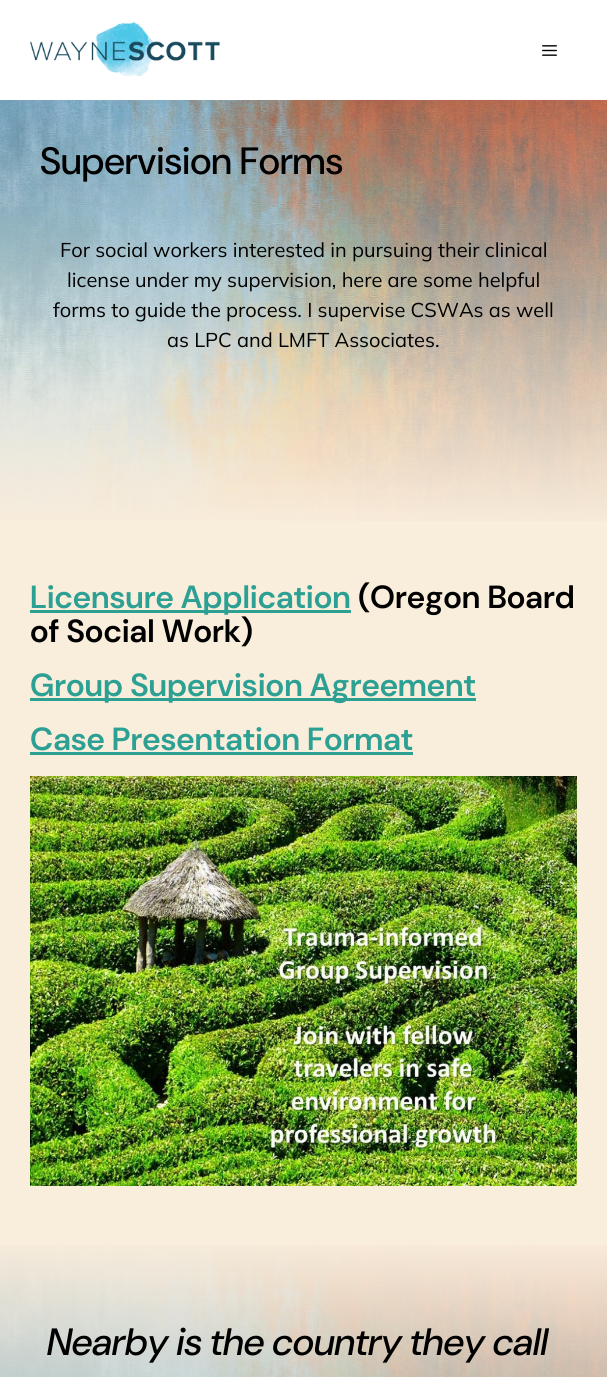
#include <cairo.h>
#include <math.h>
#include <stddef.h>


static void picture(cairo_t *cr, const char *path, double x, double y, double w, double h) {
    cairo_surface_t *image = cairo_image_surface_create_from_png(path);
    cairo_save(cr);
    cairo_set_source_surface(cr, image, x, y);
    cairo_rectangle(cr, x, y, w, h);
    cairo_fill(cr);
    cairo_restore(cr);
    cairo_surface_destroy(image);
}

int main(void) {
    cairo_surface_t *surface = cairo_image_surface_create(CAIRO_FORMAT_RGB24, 607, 1377);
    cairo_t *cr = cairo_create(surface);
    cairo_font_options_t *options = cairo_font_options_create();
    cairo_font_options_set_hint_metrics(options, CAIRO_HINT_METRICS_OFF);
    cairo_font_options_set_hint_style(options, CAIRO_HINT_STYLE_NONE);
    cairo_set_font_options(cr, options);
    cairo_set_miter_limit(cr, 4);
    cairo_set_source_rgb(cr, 0.976, 0.929, 0.863);
    cairo_paint(cr);
    cairo_set_source_rgb(cr, 1, 1, 1);
    cairo_rectangle(cr, 0, 0, 607, 100);
    cairo_fill(cr);
    picture(cr, "img1.png", 30, 22, 190, 55);
    picture(cr, "img2.png", 542, 45, 15, 11);
    picture(cr, "img3.png", 0, 100, 607, 421);
    cairo_select_font_face(cr, "DM Sans Medium", CAIRO_FONT_SLANT_NORMAL, CAIRO_FONT_WEIGHT_NORMAL);
    cairo_set_font_size(cr, 38);
    cairo_set_source_rgb(cr, 0, 0, 0);
    cairo_move_to(cr, 40, 174);
    cairo_show_text(cr, "Supervision Forms");
    cairo_select_font_face(cr, "Mulish", CAIRO_FONT_SLANT_NORMAL, CAIRO_FONT_WEIGHT_NORMAL);
    cairo_set_font_size(cr, 20);
    cairo_move_to(cr, 60, 257);
    cairo_show_text(cr, "For social workers interested in pursuing their clinical");
    cairo_move_to(cr, 67, 287);
    cairo_show_text(cr, "license under my supervision, here are some helpful");
    cairo_move_to(cr, 53, 317);
    cairo_show_text(cr, "forms to guide the process. I supervise CSWAs as well");
    cairo_move_to(cr, 167, 347);
    cairo_show_text(cr, "as LPC and LMFT Associates.");
    cairo_set_source_rgb(cr, 0.173, 0.627, 0.576);
    cairo_rectangle(cr, 30, 610, 321, 3);
    cairo_fill(cr);
    cairo_select_font_face(cr, "DM Sans SemiBold", CAIRO_FONT_SLANT_NORMAL, CAIRO_FONT_WEIGHT_NORMAL);
    cairo_set_font_size(cr, 32);
    cairo_move_to(cr, 30, 608);
    cairo_show_text(cr, "Licensure Application");
    cairo_set_source_rgb(cr, 0, 0, 0);
    cairo_move_to(cr, 358, 608);
    cairo_show_text(cr, "(Oregon Board");
    cairo_move_to(cr, 30, 642);
    cairo_show_text(cr, "of Social Work)");
    cairo_set_source_rgb(cr, 0.173, 0.627, 0.576);
    cairo_rectangle(cr, 30, 698, 446, 3);
    cairo_fill(cr);
    cairo_move_to(cr, 30, 696);
    cairo_show_text(cr, "Group Supervision Agreement");
    cairo_move_to(cr, 30, 750);
    cairo_show_text(cr, "Case Presentation Format");
    cairo_rectangle(cr, 30, 752, 383, 3);
    cairo_fill(cr);
    picture(cr, "img4.png", 30, 776, 547, 410);
    picture(cr, "img5.png", 0, 1245, 607, 132);
    cairo_select_font_face(cr, "DM Sans Medium", CAIRO_FONT_SLANT_ITALIC, CAIRO_FONT_WEIGHT_NORMAL);
    cairo_set_font_size(cr, 38);
    cairo_set_source_rgb(cr, 0, 0, 0);
    cairo_move_to(cr, 47, 1355);
    cairo_show_text(cr, "Nearby is the country they call");
    cairo_surface_write_to_png(surface, "page.png");
    cairo_font_options_destroy(options);
    cairo_destroy(cr);
    cairo_surface_destroy(surface);
    return 0;
}
